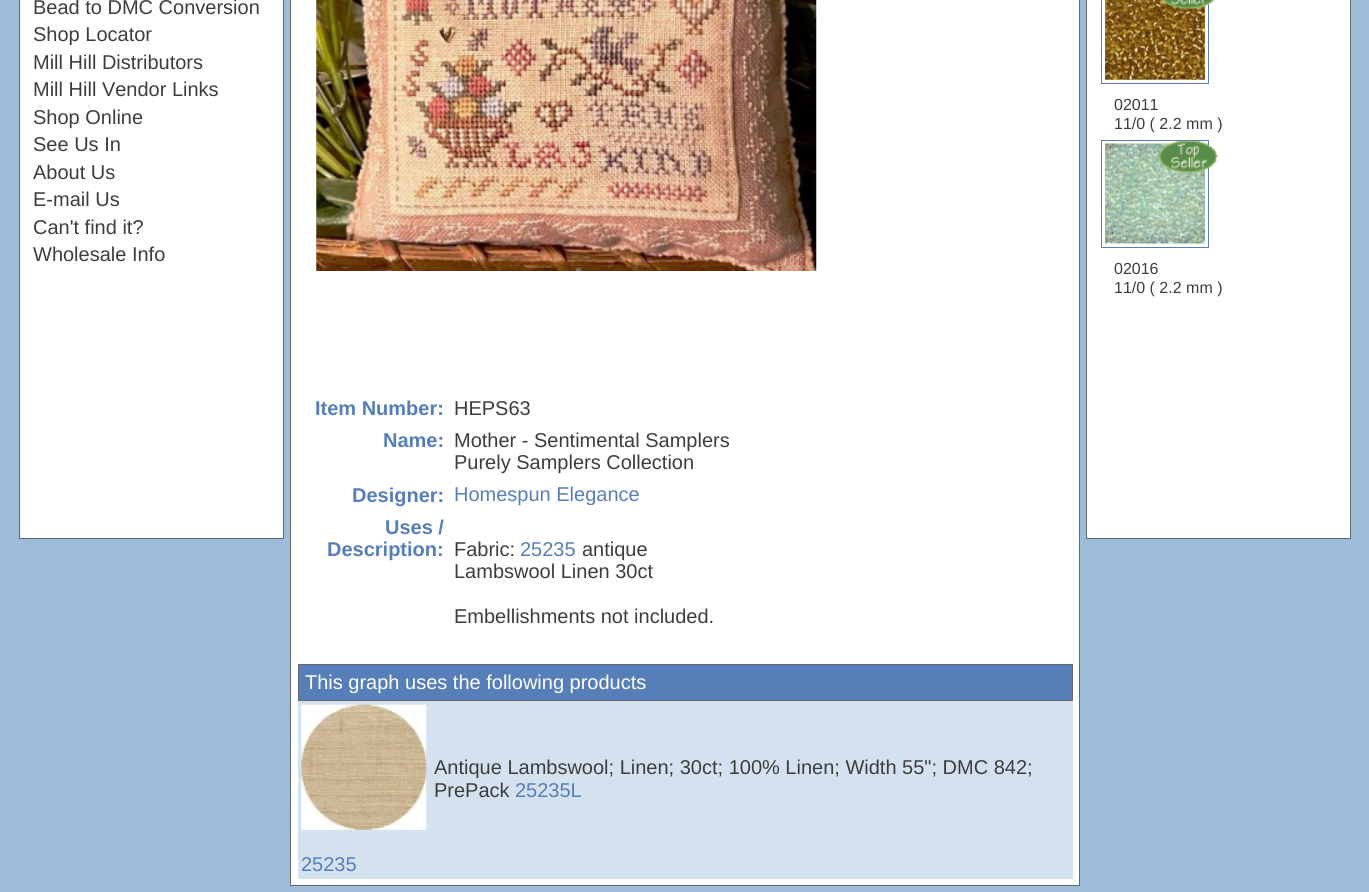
#include <cairo.h>
#include <math.h>
#include <stddef.h>


static void picture(cairo_t *cr, const char *path, double x, double y, double w, double h) {
    cairo_surface_t *image = cairo_image_surface_create_from_png(path);
    cairo_save(cr);
    cairo_set_source_surface(cr, image, x, y);
    cairo_rectangle(cr, x, y, w, h);
    cairo_fill(cr);
    cairo_restore(cr);
    cairo_surface_destroy(image);
}

int main(void) {
    cairo_surface_t *surface = cairo_image_surface_create(CAIRO_FORMAT_RGB24, 1369, 892);
    cairo_t *cr = cairo_create(surface);
    cairo_font_options_t *options = cairo_font_options_create();
    cairo_font_options_set_hint_metrics(options, CAIRO_HINT_METRICS_OFF);
    cairo_font_options_set_hint_style(options, CAIRO_HINT_STYLE_NONE);
    cairo_set_font_options(cr, options);
    cairo_set_miter_limit(cr, 4);
    cairo_set_source_rgb(cr, 0.612, 0.737, 0.855);
    cairo_paint(cr);
    cairo_set_source_rgb(cr, 1, 1, 1);
    cairo_rectangle(cr, 19.5, -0.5, 264, 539);
    cairo_fill_preserve(cr);
    cairo_set_source_rgb(cr, 0.4, 0.4, 0.4);
    cairo_set_line_width(cr, 1);
    cairo_stroke(cr);
    cairo_select_font_face(cr, "Liberation Sans", CAIRO_FONT_SLANT_NORMAL, CAIRO_FONT_WEIGHT_NORMAL);
    cairo_set_font_size(cr, 20);
    cairo_set_source_rgb(cr, 0.239, 0.239, 0.239);
    cairo_move_to(cr, 33, 14);
    cairo_show_text(cr, "Bead to DMC Conversion");
    cairo_move_to(cr, 33, 41);
    cairo_show_text(cr, "Shop Locator");
    cairo_move_to(cr, 33, 69);
    cairo_show_text(cr, "Mill Hill Distributors");
    cairo_move_to(cr, 33, 96);
    cairo_show_text(cr, "Mill Hill Vendor Links");
    cairo_move_to(cr, 33, 124);
    cairo_show_text(cr, "Shop Online");
    cairo_move_to(cr, 33, 151);
    cairo_show_text(cr, "See Us In");
    cairo_move_to(cr, 33, 179);
    cairo_show_text(cr, "About Us");
    cairo_move_to(cr, 33, 206);
    cairo_show_text(cr, "E-mail Us");
    cairo_move_to(cr, 33, 234);
    cairo_show_text(cr, "Can't find it?");
    cairo_move_to(cr, 33, 261);
    cairo_show_text(cr, "Wholesale Info");
    cairo_set_source_rgb(cr, 1, 1, 1);
    cairo_rectangle(cr, 1086.5, -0.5, 264, 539);
    cairo_fill_preserve(cr);
    cairo_set_source_rgb(cr, 0.4, 0.4, 0.4);
    cairo_stroke(cr);
    cairo_rectangle(cr, 1101.5, -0.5, 107, 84);
    cairo_set_source_rgb(cr, 0.337, 0.494, 0.725);
    cairo_stroke(cr);
    picture(cr, "img1.png", 1105, 0, 100, 80);
    picture(cr, "img2.png", 1162, 0, 52, 9);
    cairo_set_font_size(cr, 16);
    cairo_set_source_rgb(cr, 0.239, 0.239, 0.239);
    cairo_move_to(cr, 1114, 110);
    cairo_show_text(cr, "02011");
    cairo_move_to(cr, 1114, 129);
    cairo_show_text(cr, "11/0 ( 2.2 mm )");
    cairo_rectangle(cr, 1101.5, 140.5, 107, 107);
    cairo_set_source_rgb(cr, 0.337, 0.494, 0.725);
    cairo_stroke(cr);
    picture(cr, "img3.png", 1105, 143, 100, 101);
    picture(cr, "img4.png", 1158, 140, 60, 33);
    cairo_set_source_rgb(cr, 0.239, 0.239, 0.239);
    cairo_move_to(cr, 1114, 274);
    cairo_show_text(cr, "02016");
    cairo_move_to(cr, 1114, 293);
    cairo_show_text(cr, "11/0 ( 2.2 mm )");
    cairo_set_source_rgb(cr, 1, 1, 1);
    cairo_rectangle(cr, 290.5, -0.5, 789, 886);
    cairo_fill_preserve(cr);
    cairo_set_source_rgb(cr, 0.4, 0.4, 0.4);
    cairo_stroke(cr);
    picture(cr, "img5.png", 316, 0, 501, 271);
    cairo_select_font_face(cr, "Liberation Sans", CAIRO_FONT_SLANT_NORMAL, CAIRO_FONT_WEIGHT_BOLD);
    cairo_set_font_size(cr, 20);
    cairo_set_source_rgb(cr, 0.337, 0.494, 0.725);
    cairo_move_to(cr, 315, 415);
    cairo_show_text(cr, "Item Number:");
    cairo_select_font_face(cr, "Liberation Sans", CAIRO_FONT_SLANT_NORMAL, CAIRO_FONT_WEIGHT_NORMAL);
    cairo_set_source_rgb(cr, 0.239, 0.239, 0.239);
    cairo_move_to(cr, 454, 415);
    cairo_show_text(cr, "HEPS63");
    cairo_select_font_face(cr, "Liberation Sans", CAIRO_FONT_SLANT_NORMAL, CAIRO_FONT_WEIGHT_BOLD);
    cairo_set_source_rgb(cr, 0.337, 0.494, 0.725);
    cairo_move_to(cr, 383, 447);
    cairo_show_text(cr, "Name:");
    cairo_select_font_face(cr, "Liberation Sans", CAIRO_FONT_SLANT_NORMAL, CAIRO_FONT_WEIGHT_NORMAL);
    cairo_set_source_rgb(cr, 0.239, 0.239, 0.239);
    cairo_move_to(cr, 454, 447);
    cairo_show_text(cr, "Mother - Sentimental Samplers");
    cairo_move_to(cr, 454, 469);
    cairo_show_text(cr, "Purely Samplers Collection");
    cairo_select_font_face(cr, "Liberation Sans", CAIRO_FONT_SLANT_NORMAL, CAIRO_FONT_WEIGHT_BOLD);
    cairo_set_source_rgb(cr, 0.337, 0.494, 0.725);
    cairo_move_to(cr, 352, 502);
    cairo_show_text(cr, "Designer:");
    cairo_select_font_face(cr, "Liberation Sans", CAIRO_FONT_SLANT_NORMAL, CAIRO_FONT_WEIGHT_NORMAL);
    cairo_move_to(cr, 454, 501);
    cairo_show_text(cr, "Homespun Elegance");
    cairo_select_font_face(cr, "Liberation Sans", CAIRO_FONT_SLANT_NORMAL, CAIRO_FONT_WEIGHT_BOLD);
    cairo_move_to(cr, 385, 534);
    cairo_show_text(cr, "Uses /");
    cairo_move_to(cr, 327, 556);
    cairo_show_text(cr, "Description:");
    cairo_select_font_face(cr, "Liberation Sans", CAIRO_FONT_SLANT_NORMAL, CAIRO_FONT_WEIGHT_NORMAL);
    cairo_set_source_rgb(cr, 0.239, 0.239, 0.239);
    cairo_move_to(cr, 454, 556);
    cairo_show_text(cr, "Fabric:");
    cairo_set_source_rgb(cr, 0.337, 0.494, 0.725);
    cairo_move_to(cr, 520, 556);
    cairo_show_text(cr, "25235");
    cairo_set_source_rgb(cr, 0.239, 0.239, 0.239);
    cairo_move_to(cr, 582, 556);
    cairo_show_text(cr, "antique");
    cairo_move_to(cr, 454, 578);
    cairo_show_text(cr, "Lambswool Linen 30ct");
    cairo_move_to(cr, 454, 623);
    cairo_show_text(cr, "Embellishments not included.");
    cairo_set_source_rgb(cr, 0.337, 0.494, 0.725);
    cairo_rectangle(cr, 298.5, 664.5, 774, 36);
    cairo_fill_preserve(cr);
    cairo_set_source_rgb(cr, 0.4, 0.4, 0.4);
    cairo_stroke(cr);
    cairo_set_source_rgb(cr, 1, 1, 1);
    cairo_move_to(cr, 305, 689);
    cairo_show_text(cr, "This graph uses the following products");
    cairo_set_source_rgb(cr, 0.831, 0.886, 0.937);
    cairo_rectangle(cr, 298, 701, 775, 178);
    cairo_fill(cr);
    cairo_set_source_rgb(cr, 0.239, 0.239, 0.239);
    cairo_move_to(cr, 434, 774);
    cairo_show_text(cr, "Antique Lambswool; Linen; 30ct; 100% Linen; Width 55\"; DMC 842;");
    cairo_move_to(cr, 434, 797);
    cairo_show_text(cr, "PrePack");
    cairo_set_source_rgb(cr, 0.337, 0.494, 0.725);
    cairo_move_to(cr, 515, 797);
    cairo_show_text(cr, "25235L");
    picture(cr, "img6.png", 301, 704, 126, 126);
    cairo_move_to(cr, 301, 871);
    cairo_show_text(cr, "25235");
    cairo_surface_write_to_png(surface, "page.png");
    cairo_font_options_destroy(options);
    cairo_destroy(cr);
    cairo_surface_destroy(surface);
    return 0;
}
